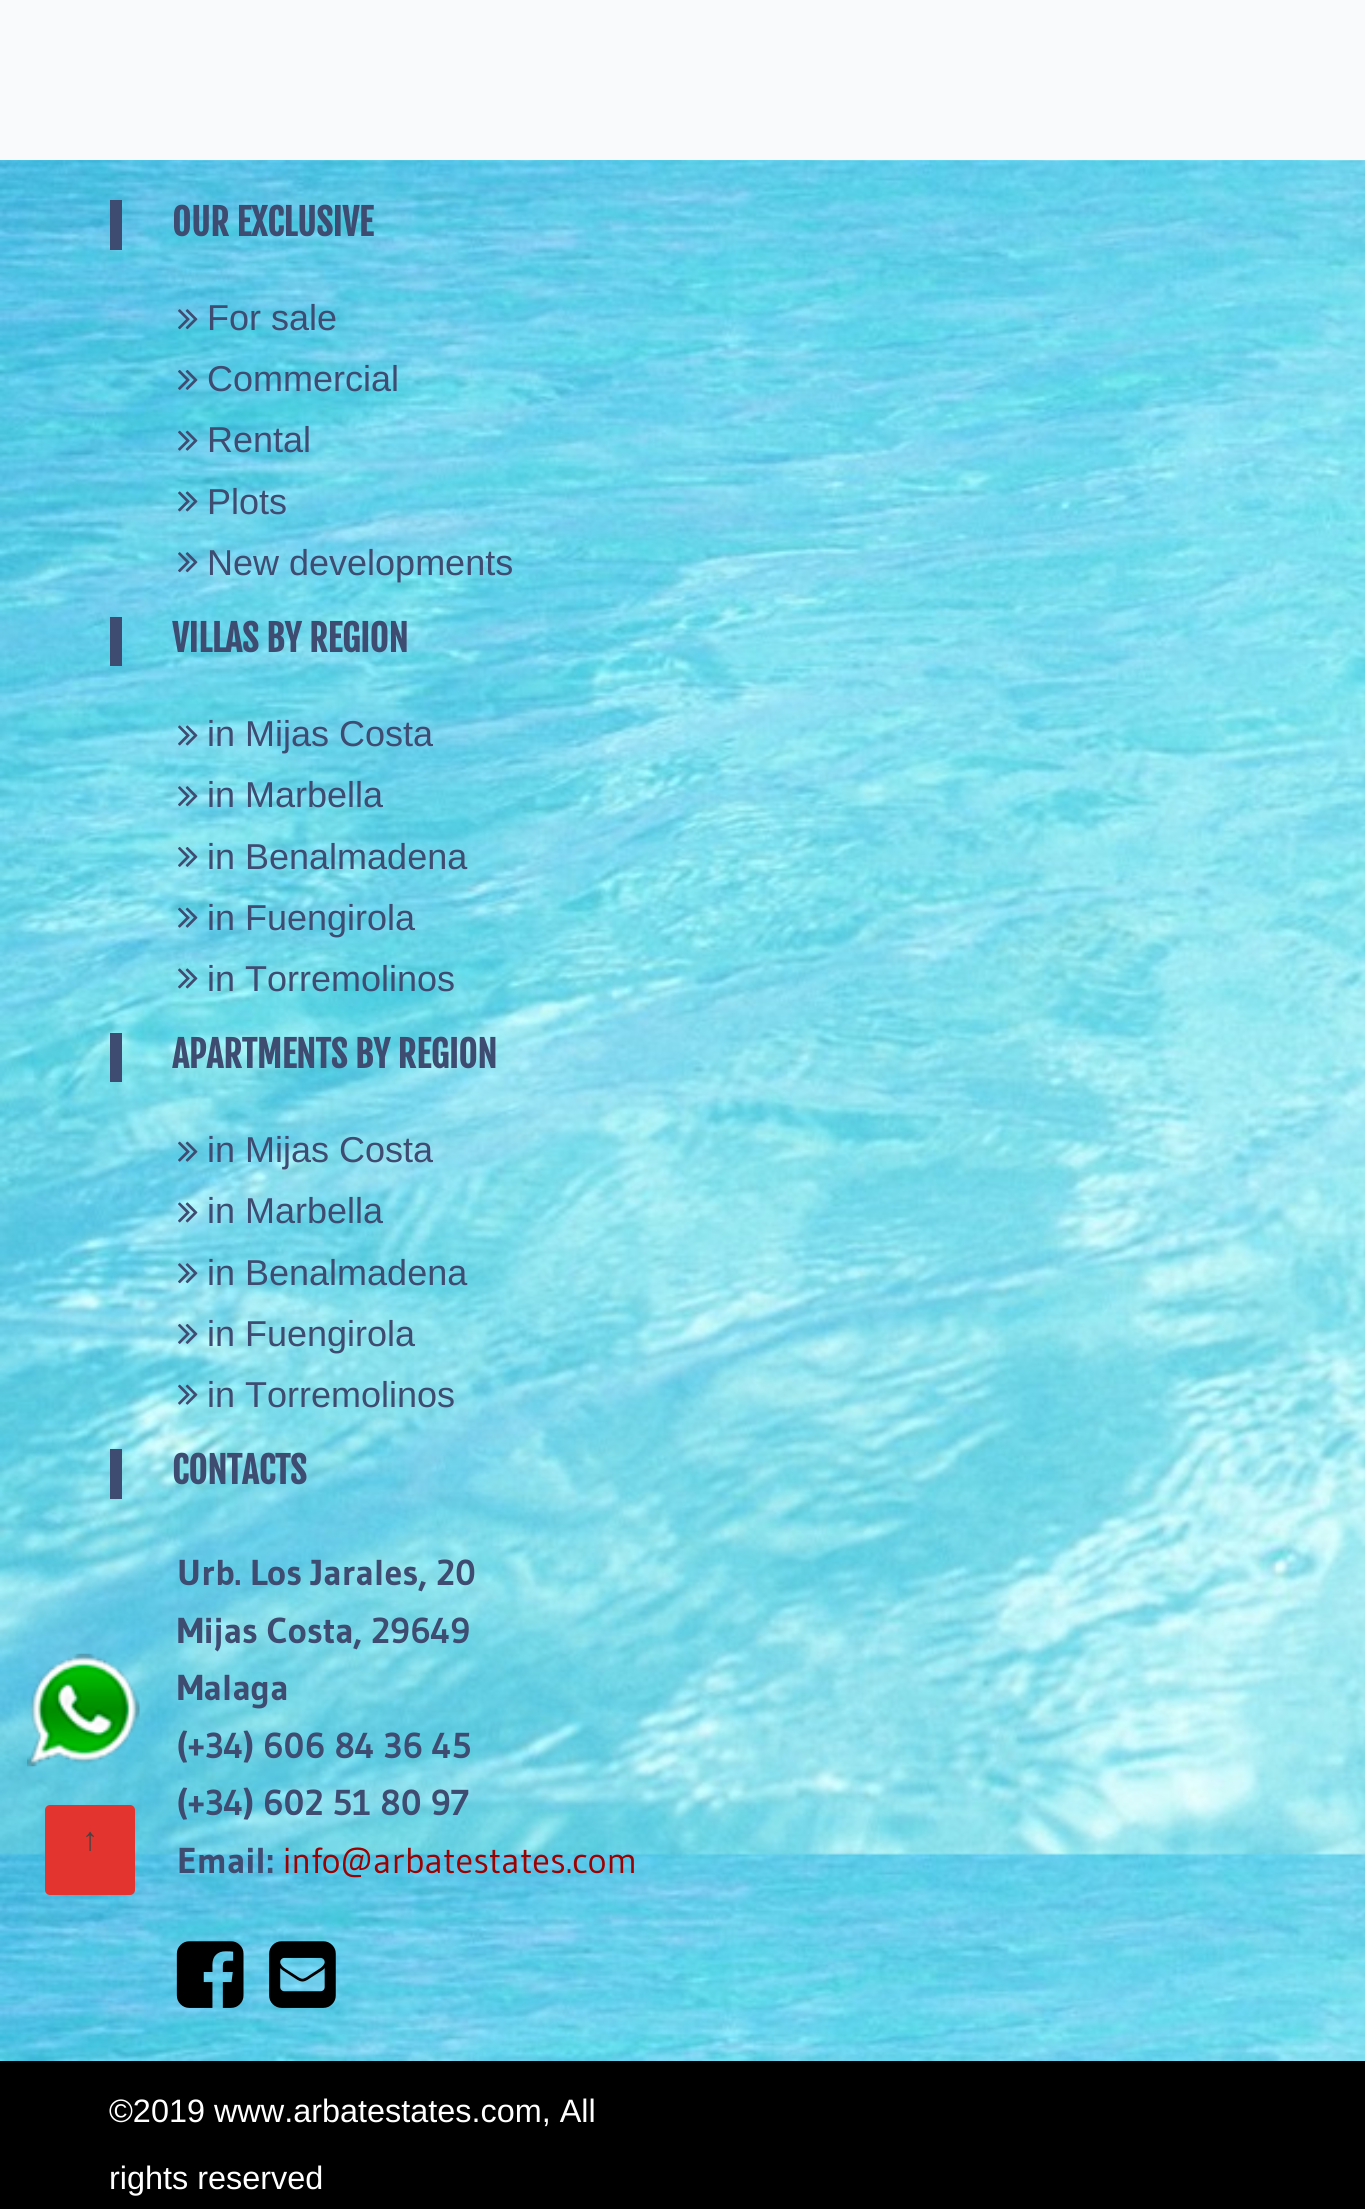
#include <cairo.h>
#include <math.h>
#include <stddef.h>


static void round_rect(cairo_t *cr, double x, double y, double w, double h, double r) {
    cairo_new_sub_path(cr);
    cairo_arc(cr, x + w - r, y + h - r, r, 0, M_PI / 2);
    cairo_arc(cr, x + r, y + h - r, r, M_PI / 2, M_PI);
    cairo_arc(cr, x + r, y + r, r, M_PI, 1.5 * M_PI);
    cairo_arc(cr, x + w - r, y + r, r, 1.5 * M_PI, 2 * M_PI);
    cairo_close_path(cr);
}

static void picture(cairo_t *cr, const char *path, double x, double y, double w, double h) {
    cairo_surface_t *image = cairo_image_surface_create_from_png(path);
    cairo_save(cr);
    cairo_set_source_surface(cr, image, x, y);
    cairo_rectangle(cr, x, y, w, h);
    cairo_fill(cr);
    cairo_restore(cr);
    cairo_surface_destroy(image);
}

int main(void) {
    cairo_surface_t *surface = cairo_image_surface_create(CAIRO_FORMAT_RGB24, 1365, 2209);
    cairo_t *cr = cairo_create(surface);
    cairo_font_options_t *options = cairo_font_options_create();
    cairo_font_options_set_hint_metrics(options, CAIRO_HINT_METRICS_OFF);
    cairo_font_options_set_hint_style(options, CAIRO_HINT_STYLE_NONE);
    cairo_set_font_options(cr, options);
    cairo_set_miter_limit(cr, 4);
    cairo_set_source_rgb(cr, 0.973, 0.98, 0.988);
    cairo_paint(cr);
    picture(cr, "img2.png", 0, 160, 1365, 1901);
    picture(cr, "img1.png", 27, 1653, 113, 114);
    cairo_set_source_rgb(cr, 0.243, 0.298, 0.443);
    cairo_rectangle(cr, 110, 200, 12, 50);
    cairo_fill(cr);
    cairo_select_font_face(cr, "Fjalla One", CAIRO_FONT_SLANT_NORMAL, CAIRO_FONT_WEIGHT_BOLD);
    cairo_set_font_size(cr, 36);
    cairo_move_to(cr, 172, 236);
    cairo_show_text(cr, "OUR EXCLUSIVE");
    picture(cr, "img3.png", 178, 309, 20, 21);
    cairo_select_font_face(cr, "Liberation Sans", CAIRO_FONT_SLANT_NORMAL, CAIRO_FONT_WEIGHT_NORMAL);
    cairo_move_to(cr, 207, 330);
    cairo_show_text(cr, "For sale");
    picture(cr, "img4.png", 178, 370, 20, 20);
    cairo_move_to(cr, 207, 391);
    cairo_show_text(cr, "Commercial");
    picture(cr, "img5.png", 178, 430, 20, 21);
    cairo_move_to(cr, 207, 452);
    cairo_show_text(cr, "Rental");
    picture(cr, "img6.png", 178, 491, 20, 21);
    cairo_move_to(cr, 207, 514);
    cairo_show_text(cr, "Plots");
    picture(cr, "img7.png", 178, 552, 20, 21);
    cairo_move_to(cr, 207, 575);
    cairo_show_text(cr, "New developments");
    cairo_rectangle(cr, 110, 617, 12, 49);
    cairo_fill(cr);
    cairo_select_font_face(cr, "Fjalla One", CAIRO_FONT_SLANT_NORMAL, CAIRO_FONT_WEIGHT_BOLD);
    cairo_move_to(cr, 172, 652);
    cairo_show_text(cr, "VILLAS BY REGION");
    picture(cr, "img8.png", 178, 725, 20, 21);
    cairo_select_font_face(cr, "Liberation Sans", CAIRO_FONT_SLANT_NORMAL, CAIRO_FONT_WEIGHT_NORMAL);
    cairo_move_to(cr, 207, 746);
    cairo_show_text(cr, "in Mijas Costa");
    picture(cr, "img9.png", 178, 786, 20, 21);
    cairo_move_to(cr, 207, 807);
    cairo_show_text(cr, "in Marbella");
    picture(cr, "img10.png", 178, 847, 20, 20);
    cairo_move_to(cr, 207, 869);
    cairo_show_text(cr, "in Benalmadena");
    picture(cr, "img11.png", 178, 907, 20, 21);
    cairo_move_to(cr, 207, 930);
    cairo_show_text(cr, "in Fuengirola");
    picture(cr, "img12.png", 178, 968, 20, 21);
    cairo_move_to(cr, 207, 991);
    cairo_show_text(cr, "in Torremolinos");
    cairo_rectangle(cr, 110, 1033, 12, 49);
    cairo_fill(cr);
    cairo_select_font_face(cr, "Fjalla One", CAIRO_FONT_SLANT_NORMAL, CAIRO_FONT_WEIGHT_BOLD);
    cairo_move_to(cr, 172, 1068);
    cairo_show_text(cr, "APARTMENTS BY REGION");
    picture(cr, "img13.png", 178, 1141, 20, 21);
    cairo_select_font_face(cr, "Liberation Sans", CAIRO_FONT_SLANT_NORMAL, CAIRO_FONT_WEIGHT_NORMAL);
    cairo_move_to(cr, 207, 1162);
    cairo_show_text(cr, "in Mijas Costa");
    picture(cr, "img14.png", 178, 1202, 20, 21);
    cairo_move_to(cr, 207, 1223);
    cairo_show_text(cr, "in Marbella");
    picture(cr, "img15.png", 178, 1263, 20, 21);
    cairo_move_to(cr, 207, 1285);
    cairo_show_text(cr, "in Benalmadena");
    picture(cr, "img16.png", 178, 1324, 20, 20);
    cairo_move_to(cr, 207, 1346);
    cairo_show_text(cr, "in Fuengirola");
    picture(cr, "img17.png", 178, 1384, 20, 21);
    cairo_move_to(cr, 207, 1407);
    cairo_show_text(cr, "in Torremolinos");
    cairo_rectangle(cr, 110, 1449, 12, 50);
    cairo_fill(cr);
    cairo_select_font_face(cr, "Fjalla One", CAIRO_FONT_SLANT_NORMAL, CAIRO_FONT_WEIGHT_BOLD);
    cairo_move_to(cr, 172, 1484);
    cairo_show_text(cr, "CONTACTS");
    cairo_select_font_face(cr, "Gudea", CAIRO_FONT_SLANT_NORMAL, CAIRO_FONT_WEIGHT_BOLD);
    cairo_move_to(cr, 177, 1585);
    cairo_show_text(cr, "Urb. Los Jarales, 20");
    cairo_move_to(cr, 177, 1643);
    cairo_show_text(cr, "Mijas Costa, 29649");
    cairo_move_to(cr, 177, 1700);
    cairo_show_text(cr, "Malaga");
    cairo_move_to(cr, 177, 1758);
    cairo_show_text(cr, "(+34) 606 84 36 45");
    cairo_move_to(cr, 177, 1815);
    cairo_show_text(cr, "(+34) 602 51 80 97");
    cairo_move_to(cr, 177, 1873);
    cairo_show_text(cr, "Email:");
    cairo_select_font_face(cr, "Gudea", CAIRO_FONT_SLANT_NORMAL, CAIRO_FONT_WEIGHT_NORMAL);
    cairo_set_source_rgb(cr, 0.612, 0, 0);
    cairo_move_to(cr, 283, 1873);
    cairo_show_text(cr, "info@arbatestates.com");
    picture(cr, "img18.png", 176, 1941, 68, 67);
    picture(cr, "img19.png", 269, 1941, 67, 67);
    cairo_set_source_rgb(cr, 0.89, 0.204, 0.184);
    round_rect(cr, 45, 1805, 90, 90, 5);
    cairo_fill(cr);
    cairo_select_font_face(cr, "Liberation Sans", CAIRO_FONT_SLANT_NORMAL, CAIRO_FONT_WEIGHT_NORMAL);
    cairo_set_font_size(cr, 32.4);
    cairo_set_source_rgb(cr, 0.267, 0.267, 0.267);
    cairo_move_to(cr, 82, 1850);
    cairo_show_text(cr, "↑");
    cairo_set_source_rgb(cr, 0, 0, 0);
    cairo_rectangle(cr, 0, 2061, 1365, 148);
    cairo_fill(cr);
    cairo_set_source_rgb(cr, 1, 1, 1);
    cairo_move_to(cr, 109, 2122);
    cairo_show_text(cr, "©2019 www.arbatestates.com, All");
    cairo_move_to(cr, 109, 2189);
    cairo_show_text(cr, "rights reserved");
    cairo_surface_write_to_png(surface, "page.png");
    cairo_font_options_destroy(options);
    cairo_destroy(cr);
    cairo_surface_destroy(surface);
    return 0;
}
